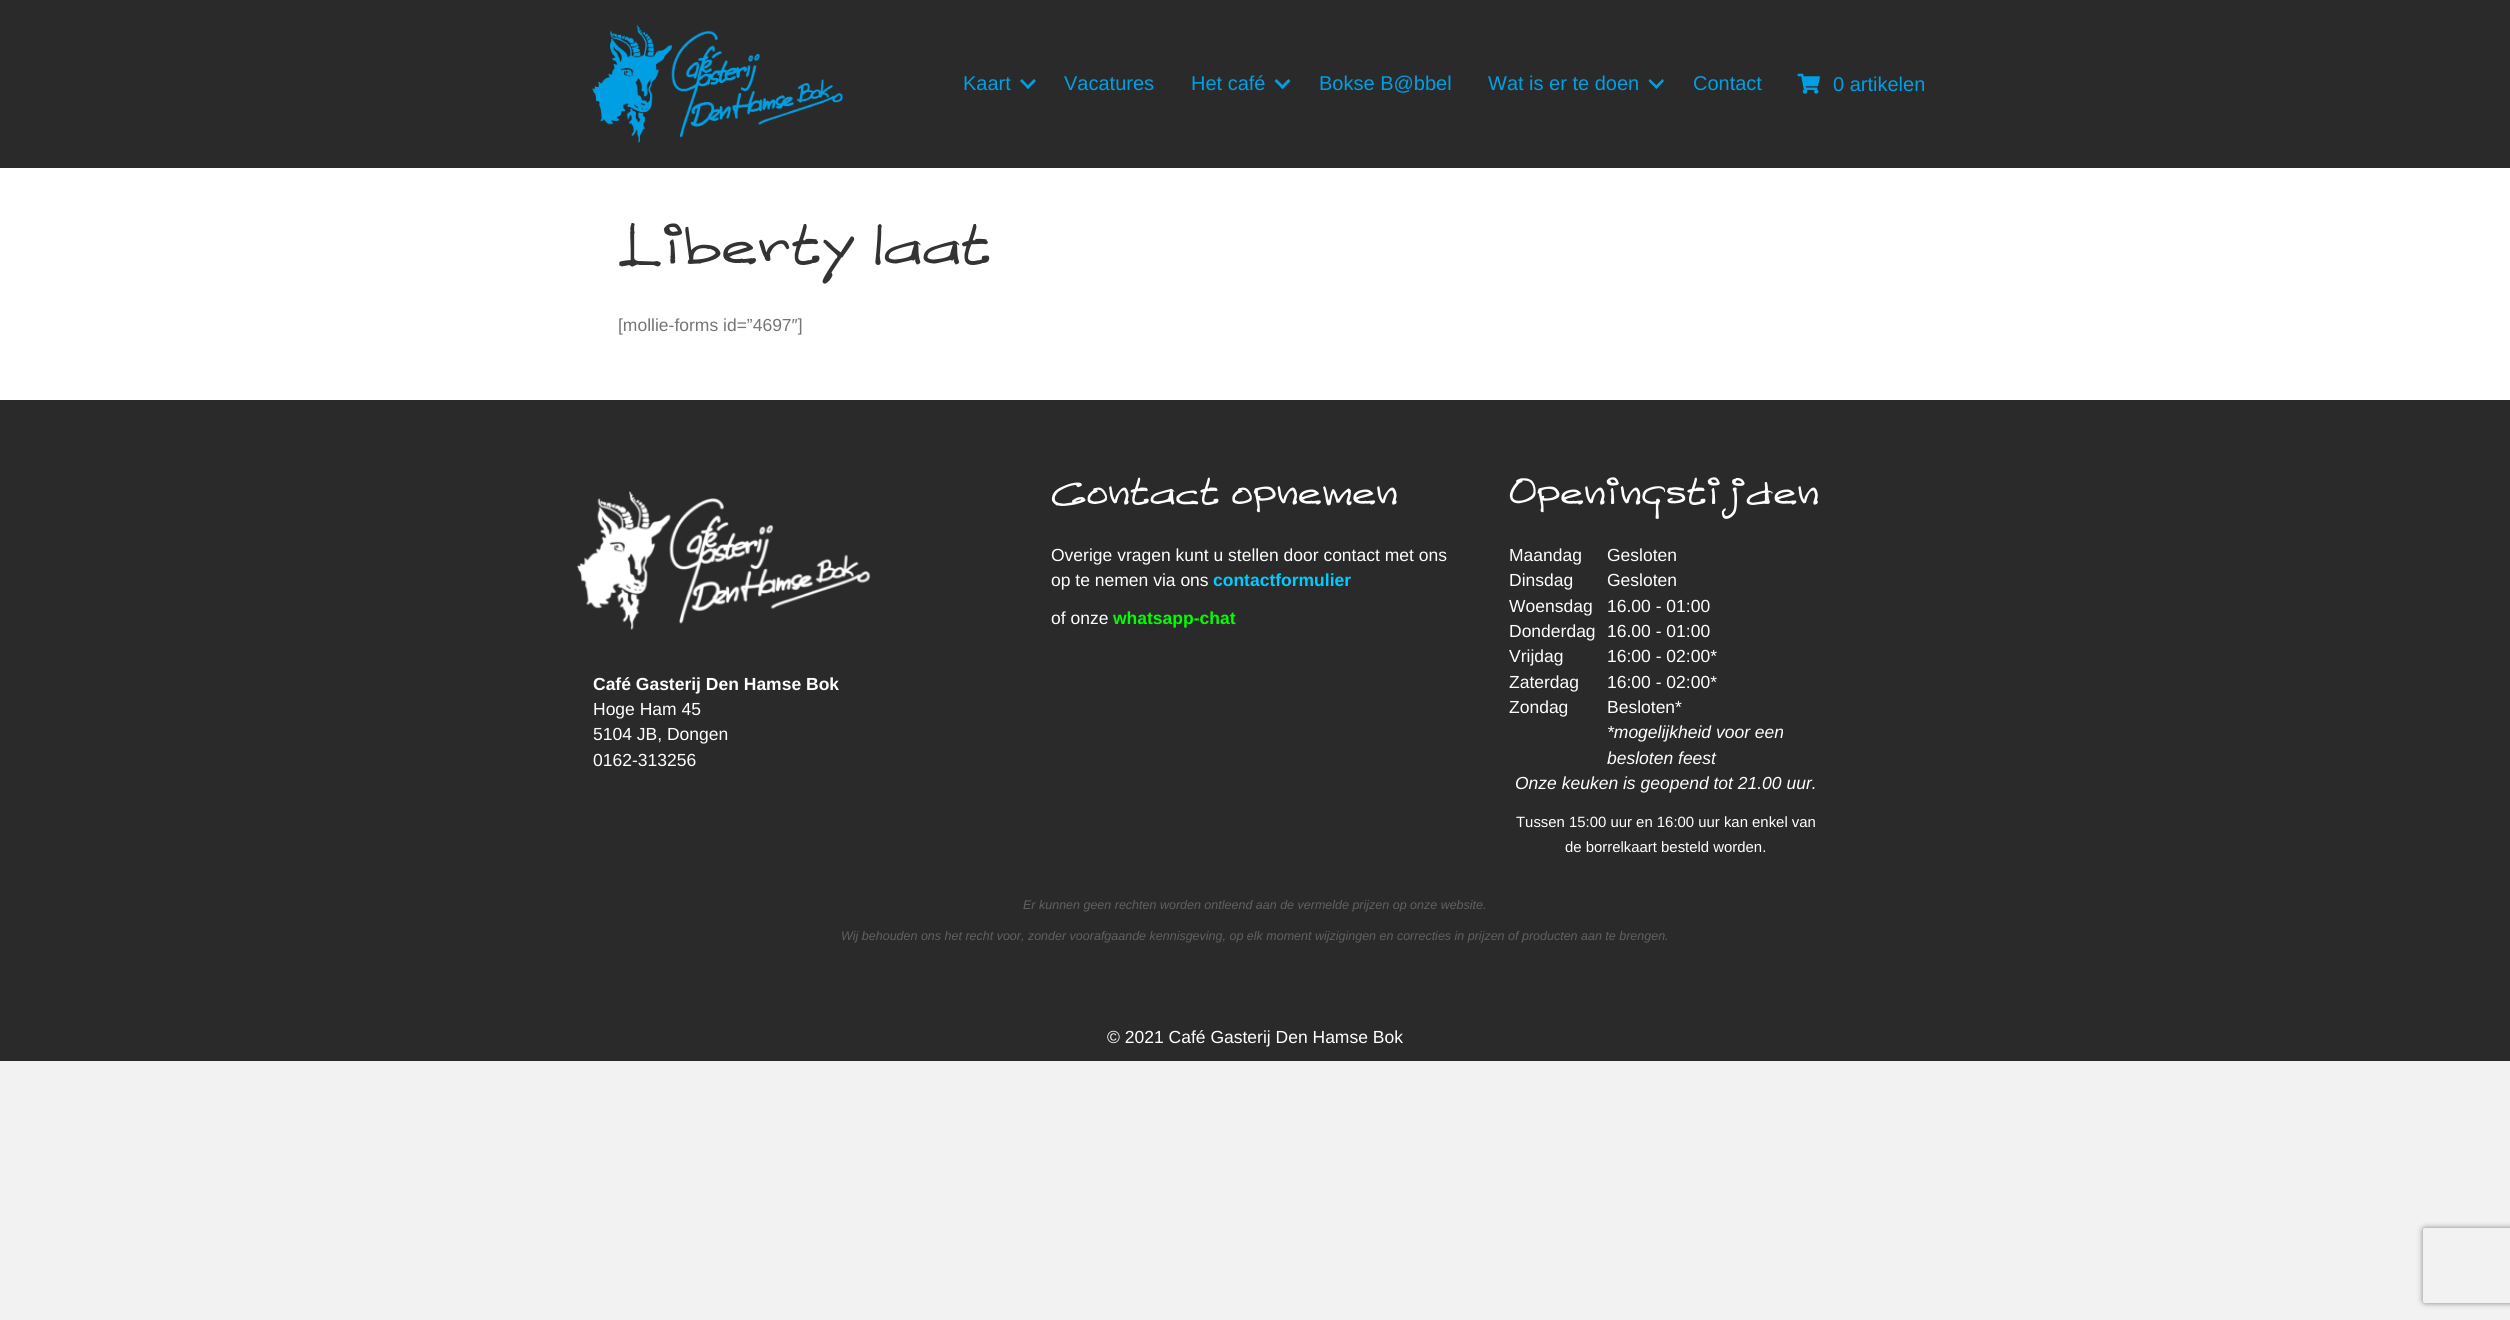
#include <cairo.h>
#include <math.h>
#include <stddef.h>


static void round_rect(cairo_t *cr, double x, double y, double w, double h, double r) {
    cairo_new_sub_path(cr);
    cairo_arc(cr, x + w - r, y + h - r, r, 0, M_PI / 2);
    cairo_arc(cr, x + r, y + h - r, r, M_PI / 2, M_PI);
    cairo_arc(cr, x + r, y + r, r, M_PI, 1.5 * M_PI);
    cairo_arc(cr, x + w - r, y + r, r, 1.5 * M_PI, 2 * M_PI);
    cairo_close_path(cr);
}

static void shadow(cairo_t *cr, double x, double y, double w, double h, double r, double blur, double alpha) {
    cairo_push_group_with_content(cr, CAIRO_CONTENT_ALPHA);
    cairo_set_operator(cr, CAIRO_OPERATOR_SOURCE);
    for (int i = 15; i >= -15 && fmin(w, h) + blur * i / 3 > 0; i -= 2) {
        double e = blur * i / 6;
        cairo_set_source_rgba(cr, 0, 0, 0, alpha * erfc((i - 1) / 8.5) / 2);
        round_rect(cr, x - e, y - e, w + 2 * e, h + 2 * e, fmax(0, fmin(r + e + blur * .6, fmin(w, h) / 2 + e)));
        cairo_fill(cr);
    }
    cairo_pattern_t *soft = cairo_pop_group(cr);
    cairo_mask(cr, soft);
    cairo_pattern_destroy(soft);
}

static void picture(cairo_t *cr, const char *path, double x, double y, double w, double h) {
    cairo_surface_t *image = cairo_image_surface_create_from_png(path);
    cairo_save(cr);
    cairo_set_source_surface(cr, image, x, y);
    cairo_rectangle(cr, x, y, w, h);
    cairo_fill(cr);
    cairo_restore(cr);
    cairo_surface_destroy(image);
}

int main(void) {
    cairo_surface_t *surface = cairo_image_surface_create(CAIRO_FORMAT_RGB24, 2510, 1320);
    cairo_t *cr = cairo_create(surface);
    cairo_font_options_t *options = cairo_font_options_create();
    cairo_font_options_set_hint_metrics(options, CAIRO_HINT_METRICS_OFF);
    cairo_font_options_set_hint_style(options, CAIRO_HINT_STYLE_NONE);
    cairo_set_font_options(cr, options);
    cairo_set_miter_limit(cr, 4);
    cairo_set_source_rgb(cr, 0.949, 0.949, 0.949);
    cairo_paint(cr);
    cairo_set_source_rgb(cr, 0.165, 0.165, 0.165);
    cairo_rectangle(cr, 0, 0, 2510, 168);
    cairo_fill(cr);
    picture(cr, "img1.png", 592, 25, 251, 118);
    cairo_select_font_face(cr, "Liberation Sans", CAIRO_FONT_SLANT_NORMAL, CAIRO_FONT_WEIGHT_NORMAL);
    cairo_set_font_size(cr, 20);
    cairo_set_source_rgb(cr, 0, 0.624, 0.89);
    cairo_move_to(cr, 963, 90);
    cairo_show_text(cr, "Kaart");
    cairo_new_path(cr);
    cairo_move_to(cr, 1034, 79);
    cairo_line_to(cr, 1036, 81);
    cairo_line_to(cr, 1028, 89);
    cairo_line_to(cr, 1026, 87);
    cairo_close_path(cr);
    cairo_fill(cr);
    cairo_new_path(cr);
    cairo_move_to(cr, 1022, 79);
    cairo_line_to(cr, 1029.5, 87);
    cairo_line_to(cr, 1028, 89);
    cairo_line_to(cr, 1020, 81);
    cairo_close_path(cr);
    cairo_fill(cr);
    cairo_move_to(cr, 1064, 90);
    cairo_show_text(cr, "Vacatures");
    cairo_move_to(cr, 1191, 90);
    cairo_show_text(cr, "Het café");
    cairo_new_path(cr);
    cairo_move_to(cr, 1288.5, 79);
    cairo_line_to(cr, 1290.5, 81);
    cairo_line_to(cr, 1282.5, 89);
    cairo_line_to(cr, 1280.5, 87);
    cairo_close_path(cr);
    cairo_fill(cr);
    cairo_new_path(cr);
    cairo_move_to(cr, 1276.5, 79);
    cairo_line_to(cr, 1284.5, 87);
    cairo_line_to(cr, 1282.5, 89);
    cairo_line_to(cr, 1274.5, 81);
    cairo_close_path(cr);
    cairo_fill(cr);
    cairo_move_to(cr, 1319, 90);
    cairo_show_text(cr, "Bokse B@bbel");
    cairo_move_to(cr, 1488, 90);
    cairo_show_text(cr, "Wat is er te doen");
    cairo_new_path(cr);
    cairo_move_to(cr, 1662.5, 79);
    cairo_line_to(cr, 1664, 81);
    cairo_line_to(cr, 1656.5, 89);
    cairo_line_to(cr, 1654.5, 87);
    cairo_close_path(cr);
    cairo_fill(cr);
    cairo_new_path(cr);
    cairo_move_to(cr, 1650, 79);
    cairo_line_to(cr, 1658, 87);
    cairo_line_to(cr, 1656.5, 89);
    cairo_line_to(cr, 1648.5, 81);
    cairo_close_path(cr);
    cairo_fill(cr);
    cairo_move_to(cr, 1693, 90);
    cairo_show_text(cr, "Contact");
    picture(cr, "img2.png", 1797, 73, 23, 21);
    cairo_move_to(cr, 1833, 91);
    cairo_show_text(cr, "0 artikelen");
    cairo_set_source_rgb(cr, 1, 1, 1);
    cairo_rectangle(cr, 0, 168, 2510, 232);
    cairo_fill(cr);
    cairo_select_font_face(cr, "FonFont", CAIRO_FONT_SLANT_NORMAL, CAIRO_FONT_WEIGHT_NORMAL);
    cairo_set_font_size(cr, 45);
    cairo_set_source_rgb(cr, 0.2, 0.2, 0.2);
    cairo_move_to(cr, 618, 265);
    cairo_show_text(cr, "Liberty laat");
    cairo_select_font_face(cr, "Liberation Sans", CAIRO_FONT_SLANT_NORMAL, CAIRO_FONT_WEIGHT_NORMAL);
    cairo_set_font_size(cr, 17.5);
    cairo_set_source_rgb(cr, 0.459, 0.459, 0.459);
    cairo_move_to(cr, 618, 331);
    cairo_show_text(cr, "[mollie-forms id=”4697″]");
    cairo_set_source_rgb(cr, 0.165, 0.165, 0.165);
    cairo_rectangle(cr, 0, 400, 2510, 661);
    cairo_fill(cr);
    picture(cr, "img3.png", 576, 491, 295, 139);
    cairo_select_font_face(cr, "Liberation Sans", CAIRO_FONT_SLANT_NORMAL, CAIRO_FONT_WEIGHT_BOLD);
    cairo_set_source_rgb(cr, 1, 1, 1);
    cairo_move_to(cr, 593, 690);
    cairo_show_text(cr, "Café Gasterij Den Hamse Bok");
    cairo_select_font_face(cr, "Liberation Sans", CAIRO_FONT_SLANT_NORMAL, CAIRO_FONT_WEIGHT_NORMAL);
    cairo_move_to(cr, 593, 715);
    cairo_show_text(cr, "Hoge Ham 45");
    cairo_move_to(cr, 593, 740);
    cairo_show_text(cr, "5104 JB, Dongen");
    cairo_move_to(cr, 593, 766);
    cairo_show_text(cr, "0162-313256");
    cairo_select_font_face(cr, "FonFont", CAIRO_FONT_SLANT_NORMAL, CAIRO_FONT_WEIGHT_NORMAL);
    cairo_set_font_size(cr, 30);
    cairo_move_to(cr, 1051, 505);
    cairo_show_text(cr, "Contact opnemen");
    cairo_select_font_face(cr, "Liberation Sans", CAIRO_FONT_SLANT_NORMAL, CAIRO_FONT_WEIGHT_NORMAL);
    cairo_set_font_size(cr, 17.5);
    cairo_move_to(cr, 1051, 561);
    cairo_show_text(cr, "Overige vragen kunt u stellen door contact met ons");
    cairo_move_to(cr, 1051, 586);
    cairo_show_text(cr, "op te nemen via ons");
    cairo_select_font_face(cr, "Liberation Sans", CAIRO_FONT_SLANT_NORMAL, CAIRO_FONT_WEIGHT_BOLD);
    cairo_set_source_rgb(cr, 0, 0.8, 1);
    cairo_move_to(cr, 1213, 586);
    cairo_show_text(cr, "contactformulier");
    cairo_select_font_face(cr, "Liberation Sans", CAIRO_FONT_SLANT_NORMAL, CAIRO_FONT_WEIGHT_NORMAL);
    cairo_set_source_rgb(cr, 1, 1, 1);
    cairo_move_to(cr, 1051, 624);
    cairo_show_text(cr, "of onze");
    cairo_select_font_face(cr, "Liberation Sans", CAIRO_FONT_SLANT_NORMAL, CAIRO_FONT_WEIGHT_BOLD);
    cairo_set_source_rgb(cr, 0, 1, 0);
    cairo_move_to(cr, 1113, 624);
    cairo_show_text(cr, "whatsapp-chat");
    cairo_select_font_face(cr, "FonFont", CAIRO_FONT_SLANT_NORMAL, CAIRO_FONT_WEIGHT_NORMAL);
    cairo_set_font_size(cr, 30);
    cairo_set_source_rgb(cr, 1, 1, 1);
    cairo_move_to(cr, 1509, 505);
    cairo_show_text(cr, "Openingstijden");
    cairo_select_font_face(cr, "Liberation Sans", CAIRO_FONT_SLANT_NORMAL, CAIRO_FONT_WEIGHT_NORMAL);
    cairo_set_font_size(cr, 17.5);
    cairo_move_to(cr, 1509, 561);
    cairo_show_text(cr, "Maandag");
    cairo_move_to(cr, 1607, 561);
    cairo_show_text(cr, "Gesloten");
    cairo_move_to(cr, 1509, 586);
    cairo_show_text(cr, "Dinsdag");
    cairo_move_to(cr, 1607, 586);
    cairo_show_text(cr, "Gesloten");
    cairo_move_to(cr, 1509, 612);
    cairo_show_text(cr, "Woensdag");
    cairo_move_to(cr, 1607, 612);
    cairo_show_text(cr, "16.00 - 01:00");
    cairo_move_to(cr, 1509, 637);
    cairo_show_text(cr, "Donderdag");
    cairo_move_to(cr, 1607, 637);
    cairo_show_text(cr, "16.00 - 01:00");
    cairo_move_to(cr, 1509, 662);
    cairo_show_text(cr, "Vrijdag");
    cairo_move_to(cr, 1607, 662);
    cairo_show_text(cr, "16:00 - 02:00*");
    cairo_move_to(cr, 1509, 688);
    cairo_show_text(cr, "Zaterdag");
    cairo_move_to(cr, 1607, 688);
    cairo_show_text(cr, "16:00 - 02:00*");
    cairo_move_to(cr, 1509, 713);
    cairo_show_text(cr, "Zondag");
    cairo_move_to(cr, 1607, 713);
    cairo_show_text(cr, "Besloten*");
    cairo_select_font_face(cr, "Liberation Sans", CAIRO_FONT_SLANT_ITALIC, CAIRO_FONT_WEIGHT_NORMAL);
    cairo_move_to(cr, 1607, 738);
    cairo_show_text(cr, "*mogelijkheid voor een");
    cairo_move_to(cr, 1607, 764);
    cairo_show_text(cr, "besloten feest");
    cairo_move_to(cr, 1515, 789);
    cairo_show_text(cr, "Onze keuken is geopend tot 21.00 uur.");
    cairo_select_font_face(cr, "Liberation Sans", CAIRO_FONT_SLANT_NORMAL, CAIRO_FONT_WEIGHT_NORMAL);
    cairo_set_font_size(cr, 14.9);
    cairo_move_to(cr, 1516, 827);
    cairo_show_text(cr, "Tussen 15:00 uur en 16:00 uur kan enkel van");
    cairo_move_to(cr, 1565, 852);
    cairo_show_text(cr, "de borrelkaart besteld worden.");
    cairo_select_font_face(cr, "Liberation Sans", CAIRO_FONT_SLANT_ITALIC, CAIRO_FONT_WEIGHT_NORMAL);
    cairo_set_font_size(cr, 12.5);
    cairo_set_source_rgb(cr, 0.376, 0.376, 0.376);
    cairo_move_to(cr, 1023, 909);
    cairo_show_text(cr, "Er kunnen geen rechten worden ontleend aan de vermelde prijzen op onze website.");
    cairo_move_to(cr, 841, 940);
    cairo_show_text(cr, "Wij behouden ons het recht voor, zonder voorafgaande kennisgeving, op elk moment wijzigingen en correcties in prijzen of producten aan te brengen.");
    cairo_select_font_face(cr, "Liberation Sans", CAIRO_FONT_SLANT_NORMAL, CAIRO_FONT_WEIGHT_NORMAL);
    cairo_set_font_size(cr, 17.5);
    cairo_set_source_rgb(cr, 1, 1, 1);
    cairo_move_to(cr, 1107, 1043);
    cairo_show_text(cr, "© 2021 Café Gasterij Den Hamse Bok");
    cairo_save(cr);
    cairo_set_fill_rule(cr, CAIRO_FILL_RULE_EVEN_ODD);
    cairo_new_path(cr);
    cairo_move_to(cr, 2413, 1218);
    cairo_line_to(cr, 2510, 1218);
    cairo_line_to(cr, 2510, 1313);
    cairo_line_to(cr, 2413, 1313);
    cairo_close_path(cr);
    cairo_move_to(cr, 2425.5, 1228);
    cairo_line_to(cr, 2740.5, 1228);
    cairo_curve_to(cr, 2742, 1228, 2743, 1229, 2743, 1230.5);
    cairo_line_to(cr, 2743, 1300.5);
    cairo_curve_to(cr, 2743, 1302, 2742, 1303, 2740.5, 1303);
    cairo_line_to(cr, 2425.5, 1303);
    cairo_curve_to(cr, 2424, 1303, 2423, 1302, 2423, 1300.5);
    cairo_line_to(cr, 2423, 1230.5);
    cairo_curve_to(cr, 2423, 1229, 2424, 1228, 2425.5, 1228);
    cairo_close_path(cr);
    cairo_clip(cr);
    cairo_set_source_rgb(cr, 0.502, 0.502, 0.502);
    shadow(cr, 2423, 1228, 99, 75, 2.5, 3, 1);
    cairo_restore(cr);
    cairo_surface_write_to_png(surface, "page.png");
    cairo_font_options_destroy(options);
    cairo_destroy(cr);
    cairo_surface_destroy(surface);
    return 0;
}
